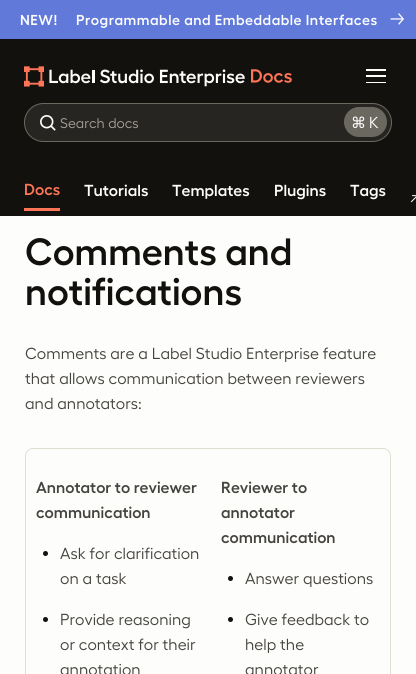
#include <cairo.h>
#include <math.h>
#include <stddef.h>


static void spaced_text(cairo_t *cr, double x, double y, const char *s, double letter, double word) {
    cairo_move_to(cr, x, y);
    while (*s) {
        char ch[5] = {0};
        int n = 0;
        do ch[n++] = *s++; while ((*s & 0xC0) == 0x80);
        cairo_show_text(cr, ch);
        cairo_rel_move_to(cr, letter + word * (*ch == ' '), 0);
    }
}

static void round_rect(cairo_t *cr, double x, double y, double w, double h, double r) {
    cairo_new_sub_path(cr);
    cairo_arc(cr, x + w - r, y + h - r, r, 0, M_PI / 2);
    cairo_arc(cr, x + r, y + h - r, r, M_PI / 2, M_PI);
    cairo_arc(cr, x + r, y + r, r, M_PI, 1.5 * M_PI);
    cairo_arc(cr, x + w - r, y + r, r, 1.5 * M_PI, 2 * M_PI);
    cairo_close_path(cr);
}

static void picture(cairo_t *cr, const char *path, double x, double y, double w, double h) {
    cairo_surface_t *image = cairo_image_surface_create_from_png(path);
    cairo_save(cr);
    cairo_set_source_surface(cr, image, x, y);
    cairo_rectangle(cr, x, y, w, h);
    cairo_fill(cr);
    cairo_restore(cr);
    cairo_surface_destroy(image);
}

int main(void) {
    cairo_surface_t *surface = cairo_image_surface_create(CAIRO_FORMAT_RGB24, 416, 674);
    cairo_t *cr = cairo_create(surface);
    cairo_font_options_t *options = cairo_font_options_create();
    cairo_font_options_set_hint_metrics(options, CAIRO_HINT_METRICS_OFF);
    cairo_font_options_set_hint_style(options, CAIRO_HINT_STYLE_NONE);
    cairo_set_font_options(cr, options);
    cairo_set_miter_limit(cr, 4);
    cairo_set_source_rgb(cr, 0.992, 0.992, 0.988);
    cairo_paint(cr);
    cairo_set_source_rgb(cr, 0.38, 0.478, 0.855);
    cairo_rectangle(cr, 0, 0, 416, 39);
    cairo_fill(cr);
    cairo_select_font_face(cr, "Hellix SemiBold", CAIRO_FONT_SLANT_NORMAL, CAIRO_FONT_WEIGHT_NORMAL);
    cairo_set_font_size(cr, 14.4);
    cairo_set_source_rgb(cr, 0.992, 0.992, 0.988);
    spaced_text(cr, 20, 25, "NEW!", 0.5, 0);
    spaced_text(cr, 76, 25, "Programmable and Embeddable Interfaces", 0.5, 0);
    picture(cr, "img1.png", 390, 13, 14, 12);
    cairo_set_source_rgb(cr, 0.071, 0.067, 0.051);
    cairo_rectangle(cr, 0, 39, 416, 177);
    cairo_fill(cr);
    picture(cr, "img2.png", 24, 66, 268, 21);
    cairo_set_source_rgb(cr, 0.992, 0.992, 0.988);
    cairo_rectangle(cr, 366, 69, 20, 2);
    cairo_fill(cr);
    cairo_rectangle(cr, 366, 75, 20, 2);
    cairo_fill(cr);
    cairo_rectangle(cr, 366, 82, 20, 1);
    cairo_fill(cr);
    cairo_set_source_rgb(cr, 0.149, 0.145, 0.133);
    round_rect(cr, 24.5, 103.5, 367, 38, 19);
    cairo_fill_preserve(cr);
    cairo_set_source_rgb(cr, 0.42, 0.408, 0.376);
    cairo_set_line_width(cr, 1);
    cairo_stroke(cr);
    picture(cr, "img3.png", 40, 115, 16, 16);
    cairo_select_font_face(cr, "Hellix", CAIRO_FONT_SLANT_NORMAL, CAIRO_FONT_WEIGHT_NORMAL);
    cairo_set_font_size(cr, 14);
    cairo_set_source_rgb(cr, 0.643, 0.624, 0.584);
    cairo_move_to(cr, 60, 128);
    cairo_show_text(cr, "Search docs");
    picture(cr, "img4.png", 344, 107, 43, 30);
    cairo_set_source_rgb(cr, 1, 0.459, 0.341);
    cairo_rectangle(cr, 24, 208, 36, 3);
    cairo_fill(cr);
    cairo_select_font_face(cr, "Hellix SemiBold", CAIRO_FONT_SLANT_NORMAL, CAIRO_FONT_WEIGHT_NORMAL);
    cairo_set_font_size(cr, 16);
    cairo_move_to(cr, 24, 195);
    cairo_show_text(cr, "Docs");
    cairo_set_source_rgb(cr, 0.992, 0.992, 0.988);
    cairo_move_to(cr, 84, 196);
    cairo_show_text(cr, "Tutorials");
    cairo_move_to(cr, 172, 196);
    cairo_show_text(cr, "Templates");
    cairo_move_to(cr, 274, 196);
    cairo_show_text(cr, "Plugins");
    cairo_move_to(cr, 350, 196);
    cairo_show_text(cr, "Tags");
    picture(cr, "img5.png", 410, 195, 6, 8);
    cairo_set_font_size(cr, 38);
    cairo_set_source_rgb(cr, 0.071, 0.067, 0.051);
    cairo_move_to(cr, 25, 265);
    cairo_show_text(cr, "Comments and");
    cairo_move_to(cr, 25, 305);
    cairo_show_text(cr, "notifications");
    cairo_select_font_face(cr, "Hellix", CAIRO_FONT_SLANT_NORMAL, CAIRO_FONT_WEIGHT_NORMAL);
    cairo_set_font_size(cr, 16);
    cairo_set_source_rgb(cr, 0.271, 0.263, 0.243);
    cairo_move_to(cr, 25, 359);
    cairo_show_text(cr, "Comments are a Label Studio Enterprise feature");
    cairo_move_to(cr, 25, 384);
    cairo_show_text(cr, "that allows communication between reviewers");
    cairo_move_to(cr, 25, 409);
    cairo_show_text(cr, "and annotators:");
    round_rect(cr, 25.5, 448.5, 365, 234, 7.5);
    cairo_set_source_rgb(cr, 0.882, 0.871, 0.835);
    cairo_stroke(cr);
    cairo_select_font_face(cr, "Hellix SemiBold", CAIRO_FONT_SLANT_NORMAL, CAIRO_FONT_WEIGHT_NORMAL);
    cairo_set_source_rgb(cr, 0.271, 0.263, 0.243);
    cairo_move_to(cr, 36, 493);
    cairo_show_text(cr, "Annotator to reviewer");
    cairo_move_to(cr, 36, 518);
    cairo_show_text(cr, "communication");
    cairo_set_source_rgb(cr, 0.071, 0.067, 0.051);
    cairo_new_path(cr);
    cairo_arc(cr, 45.5, 553.5, 2.5, 0, 2 * M_PI);
    cairo_fill(cr);
    cairo_select_font_face(cr, "Hellix", CAIRO_FONT_SLANT_NORMAL, CAIRO_FONT_WEIGHT_NORMAL);
    cairo_set_source_rgb(cr, 0.271, 0.263, 0.243);
    cairo_move_to(cr, 60, 559);
    cairo_show_text(cr, "Ask for clarification");
    cairo_move_to(cr, 60, 584);
    cairo_show_text(cr, "on a task");
    cairo_set_source_rgb(cr, 0.071, 0.067, 0.051);
    cairo_new_path(cr);
    cairo_arc(cr, 45.5, 619.5, 2.5, 0, 2 * M_PI);
    cairo_fill(cr);
    cairo_set_source_rgb(cr, 0.271, 0.263, 0.243);
    cairo_move_to(cr, 60, 625);
    cairo_show_text(cr, "Provide reasoning");
    cairo_move_to(cr, 60, 650);
    cairo_show_text(cr, "or context for their");
    cairo_move_to(cr, 60, 675);
    cairo_show_text(cr, "annotation");
    cairo_select_font_face(cr, "Hellix SemiBold", CAIRO_FONT_SLANT_NORMAL, CAIRO_FONT_WEIGHT_NORMAL);
    cairo_move_to(cr, 221, 493);
    cairo_show_text(cr, "Reviewer to");
    cairo_move_to(cr, 221, 518);
    cairo_show_text(cr, "annotator");
    cairo_move_to(cr, 221, 543);
    cairo_show_text(cr, "communication");
    cairo_set_source_rgb(cr, 0.071, 0.067, 0.051);
    cairo_new_path(cr);
    cairo_arc(cr, 230.5, 578.5, 2.5, 0, 2 * M_PI);
    cairo_fill(cr);
    cairo_select_font_face(cr, "Hellix", CAIRO_FONT_SLANT_NORMAL, CAIRO_FONT_WEIGHT_NORMAL);
    cairo_set_source_rgb(cr, 0.271, 0.263, 0.243);
    cairo_move_to(cr, 245, 584);
    cairo_show_text(cr, "Answer questions");
    cairo_set_source_rgb(cr, 0.071, 0.067, 0.051);
    cairo_new_path(cr);
    cairo_arc(cr, 230.5, 619.5, 2.5, 0, 2 * M_PI);
    cairo_fill(cr);
    cairo_set_source_rgb(cr, 0.271, 0.263, 0.243);
    cairo_move_to(cr, 245, 625);
    cairo_show_text(cr, "Give feedback to");
    cairo_move_to(cr, 245, 650);
    cairo_show_text(cr, "help the");
    cairo_move_to(cr, 245, 675);
    cairo_show_text(cr, "annotator");
    cairo_surface_write_to_png(surface, "page.png");
    cairo_font_options_destroy(options);
    cairo_destroy(cr);
    cairo_surface_destroy(surface);
    return 0;
}
